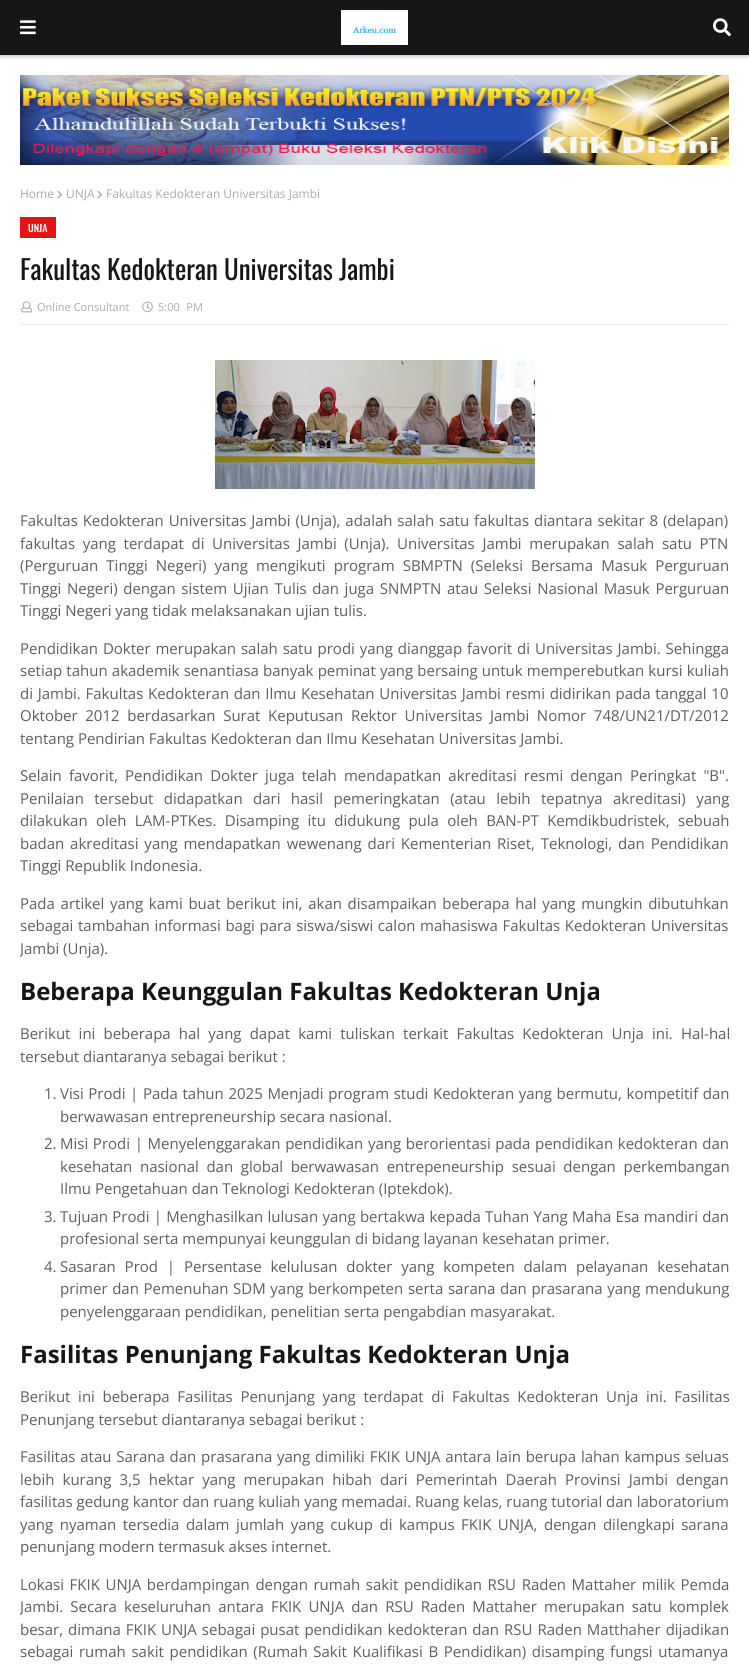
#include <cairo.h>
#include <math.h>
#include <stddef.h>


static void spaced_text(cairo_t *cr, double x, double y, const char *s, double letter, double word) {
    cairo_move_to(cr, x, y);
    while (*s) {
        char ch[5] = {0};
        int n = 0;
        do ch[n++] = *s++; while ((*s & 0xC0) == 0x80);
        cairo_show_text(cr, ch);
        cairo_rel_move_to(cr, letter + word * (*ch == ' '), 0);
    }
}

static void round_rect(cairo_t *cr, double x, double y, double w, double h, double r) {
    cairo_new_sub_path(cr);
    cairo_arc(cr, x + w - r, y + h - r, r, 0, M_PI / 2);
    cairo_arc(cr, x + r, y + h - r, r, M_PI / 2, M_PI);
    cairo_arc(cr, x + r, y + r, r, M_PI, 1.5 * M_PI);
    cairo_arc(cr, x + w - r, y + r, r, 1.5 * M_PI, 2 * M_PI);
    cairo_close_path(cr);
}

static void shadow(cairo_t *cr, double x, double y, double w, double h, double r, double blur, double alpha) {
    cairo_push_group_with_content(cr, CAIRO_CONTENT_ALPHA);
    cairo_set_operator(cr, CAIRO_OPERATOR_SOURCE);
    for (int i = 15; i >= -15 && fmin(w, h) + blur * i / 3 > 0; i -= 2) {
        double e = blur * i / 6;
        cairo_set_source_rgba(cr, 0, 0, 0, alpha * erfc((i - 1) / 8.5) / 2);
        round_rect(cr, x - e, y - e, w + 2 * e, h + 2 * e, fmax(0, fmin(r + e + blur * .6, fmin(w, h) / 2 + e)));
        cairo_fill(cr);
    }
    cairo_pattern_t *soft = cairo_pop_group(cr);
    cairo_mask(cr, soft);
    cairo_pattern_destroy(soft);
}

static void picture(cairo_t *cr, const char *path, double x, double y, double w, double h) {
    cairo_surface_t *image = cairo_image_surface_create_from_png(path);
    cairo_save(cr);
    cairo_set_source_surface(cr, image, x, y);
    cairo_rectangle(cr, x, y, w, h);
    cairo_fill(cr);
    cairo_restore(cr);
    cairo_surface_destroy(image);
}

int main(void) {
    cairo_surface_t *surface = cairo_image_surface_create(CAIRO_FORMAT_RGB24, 749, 1674);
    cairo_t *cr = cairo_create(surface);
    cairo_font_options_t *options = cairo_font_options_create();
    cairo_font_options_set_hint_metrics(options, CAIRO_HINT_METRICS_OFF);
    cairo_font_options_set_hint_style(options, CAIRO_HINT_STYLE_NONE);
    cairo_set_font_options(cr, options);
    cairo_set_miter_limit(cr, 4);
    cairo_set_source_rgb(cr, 1, 1, 1);
    cairo_paint(cr);
    cairo_set_source_rgb(cr, 0, 0, 0);
    shadow(cr, 0, 1, 749, 55, 0, 2.5, 0.3);
    cairo_set_source_rgb(cr, 0.086, 0.086, 0.098);
    cairo_rectangle(cr, 0, 0, 749, 55);
    cairo_fill(cr);
    picture(cr, "img1.png", 20, 20, 16, 15);
    picture(cr, "img2.png", 341, 10, 67, 35);
    picture(cr, "img3.png", 713, 18, 18, 19);
    picture(cr, "img4.png", 20, 75, 709, 90);
    cairo_select_font_face(cr, "Open Sans", CAIRO_FONT_SLANT_NORMAL, CAIRO_FONT_WEIGHT_NORMAL);
    cairo_set_font_size(cr, 12);
    cairo_set_source_rgb(cr, 0.667, 0.667, 0.667);
    cairo_move_to(cr, 20, 198);
    cairo_show_text(cr, "Home");
    picture(cr, "img5.png", 57, 190, 5, 9);
    cairo_move_to(cr, 66, 198);
    cairo_show_text(cr, "UNJA");
    picture(cr, "img5.png", 97, 190, 5, 9);
    cairo_move_to(cr, 106, 198);
    cairo_show_text(cr, "Fakultas Kedokteran Universitas Jambi");
    cairo_set_source_rgb(cr, 0.898, 0.082, 0.082);
    cairo_rectangle(cr, 20, 217, 36, 21);
    cairo_fill(cr);
    cairo_select_font_face(cr, "Oswald Medium", CAIRO_FONT_SLANT_NORMAL, CAIRO_FONT_WEIGHT_NORMAL);
    cairo_set_font_size(cr, 10);
    cairo_set_source_rgb(cr, 1, 1, 1);
    cairo_move_to(cr, 28, 232);
    cairo_show_text(cr, "UNJA");
    cairo_select_font_face(cr, "Oswald", CAIRO_FONT_SLANT_NORMAL, CAIRO_FONT_WEIGHT_NORMAL);
    cairo_set_font_size(cr, 27);
    cairo_set_source_rgb(cr, 0.086, 0.086, 0.098);
    cairo_move_to(cr, 20, 280);
    cairo_show_text(cr, "Fakultas Kedokteran Universitas Jambi");
    cairo_set_source_rgb(cr, 0.922, 0.922, 0.922);
    cairo_rectangle(cr, 20, 324, 709, 1);
    cairo_fill(cr);
    picture(cr, "img6.png", 21, 301, 11, 12);
    cairo_select_font_face(cr, "Open Sans", CAIRO_FONT_SLANT_NORMAL, CAIRO_FONT_WEIGHT_NORMAL);
    cairo_set_font_size(cr, 11);
    cairo_set_source_rgb(cr, 0.667, 0.667, 0.667);
    cairo_move_to(cr, 37, 311);
    cairo_show_text(cr, "Online Consultant");
    picture(cr, "img7.png", 142, 301, 11, 12);
    cairo_move_to(cr, 158, 311);
    cairo_show_text(cr, "5:00 PM");
    picture(cr, "img8.png", 215, 360, 320, 129);
    cairo_set_font_size(cr, 15);
    cairo_set_source_rgb(cr, 0.369, 0.369, 0.369);
    spaced_text(cr, 20, 526, "Fakultas Kedokteran Universitas Jambi (Unja), adalah salah satu fakultas diantara sekitar 8 (delapan)", 0, 1);
    spaced_text(cr, 20, 549, "fakultas yang terdapat di Universitas Jambi (Unja). Universitas Jambi merupakan salah satu PTN", 0, 3.75);
    spaced_text(cr, 20, 571, "(Perguruan Tinggi Negeri) yang mengikuti program SBMPTN (Seleksi Bersama Masuk Perguruan", 0, 4.25);
    spaced_text(cr, 20, 594, "Tinggi Negeri) dengan sistem Ujian Tulis dan juga SNMPTN atau Seleksi Nasional Masuk Perguruan", 0, 1.75);
    cairo_move_to(cr, 20, 616);
    cairo_show_text(cr, "Tinggi Negeri yang tidak melaksanakan ujian tulis.");
    spaced_text(cr, 20, 654, "Pendidikan Dokter merupakan salah satu prodi yang dianggap favorit di Universitas Jambi. Sehingga", 0, 1);
    spaced_text(cr, 20, 676, "setiap tahun akademik senantiasa banyak peminat yang bersaing untuk memperebutkan kursi kuliah", 0, 0.25);
    spaced_text(cr, 20, 699, "di Jambi. Fakultas Kedokteran dan Ilmu Kesehatan Universitas Jambi resmi didirikan pada tanggal 10", 0, 0.8);
    spaced_text(cr, 20, 721, "Oktober 2012 berdasarkan Surat Keputusan Rektor Universitas Jambi Nomor 748/UN21/DT/2012", 0, 3.75);
    cairo_move_to(cr, 20, 744);
    cairo_show_text(cr, "tentang Pendirian Fakultas Kedokteran dan Ilmu Kesehatan Universitas Jambi.");
    spaced_text(cr, 20, 781, "Selain favorit, Pendidikan Dokter juga telah mendapatkan akreditasi resmi dengan Peringkat \"B\".", 0, 3.25);
    spaced_text(cr, 20, 804, "Penilaian tersebut didapatkan dari hasil pemeringkatan (atau lebih tepatnya akreditasi) yang", 0, 6.5);
    spaced_text(cr, 20, 826, "dilakukan oleh LAM-PTKes. Disamping itu didukung pula oleh BAN-PT Kemdikbudristek, sebuah", 0, 4.5);
    spaced_text(cr, 20, 849, "badan akreditasi yang mendapatkan wewenang dari Kementerian Riset, Teknologi, dan Pendidikan", 0, 2);
    cairo_move_to(cr, 20, 871);
    cairo_show_text(cr, "Tinggi Republik Indonesia.");
    spaced_text(cr, 20, 909, "Pada artikel yang kami buat berikut ini, akan disampaikan beberapa hal yang mungkin dibutuhkan", 0, 1.8);
    spaced_text(cr, 20, 931, "sebagai tambahan informasi bagi para siswa/siswi calon mahasiswa Fakultas Kedokteran Universitas", 0, 0.75);
    cairo_save(cr);
    cairo_rectangle(cr, 20, 345, 709, 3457);
    cairo_clip(cr);
    cairo_move_to(cr, 20, 954);
    cairo_show_text(cr, "Jambi (Unja).");
    cairo_restore(cr);
    cairo_select_font_face(cr, "Open Sans", CAIRO_FONT_SLANT_NORMAL, CAIRO_FONT_WEIGHT_BOLD);
    cairo_set_font_size(cr, 24);
    cairo_set_source_rgb(cr, 0.086, 0.086, 0.098);
    cairo_move_to(cr, 20, 1000);
    cairo_show_text(cr, "Beberapa Keunggulan Fakultas Kedokteran Unja");
    cairo_select_font_face(cr, "Open Sans", CAIRO_FONT_SLANT_NORMAL, CAIRO_FONT_WEIGHT_NORMAL);
    cairo_set_font_size(cr, 15);
    cairo_set_source_rgb(cr, 0.369, 0.369, 0.369);
    spaced_text(cr, 20, 1039, "Berikut ini beberapa hal yang dapat kami tuliskan terkait Fakultas Kedokteran Unja ini. Hal-hal", 0, 4.25);
    cairo_move_to(cr, 20, 1062);
    cairo_show_text(cr, "tersebut diantaranya sebagai berikut :");
    cairo_move_to(cr, 44, 1099);
    cairo_show_text(cr, "1.");
    spaced_text(cr, 60, 1099, "Visi Prodi | Pada tahun 2025 Menjadi program studi Kedokteran yang bermutu, kompetitif dan", 0, 0.75);
    cairo_move_to(cr, 60, 1122);
    cairo_show_text(cr, "berwawasan entrepreneurship secara nasional.");
    cairo_move_to(cr, 44, 1149);
    cairo_show_text(cr, "2.");
    spaced_text(cr, 60, 1149, "Misi Prodi | Menyelenggarakan pendidikan yang berorientasi pada pendidikan kedokteran dan", 0, 0.75);
    spaced_text(cr, 60, 1172, "kesehatan nasional dan global berwawasan entrepeneurship sesuai dengan perkembangan", 0, 3.75);
    cairo_move_to(cr, 60, 1194);
    cairo_show_text(cr, "Ilmu Pengetahuan dan Teknologi Kedokteran (Iptekdok).");
    cairo_move_to(cr, 44, 1222);
    cairo_show_text(cr, "3.");
    spaced_text(cr, 60, 1222, "Tujuan Prodi | Menghasilkan lulusan yang bertakwa kepada Tuhan Yang Maha Esa mandiri dan", 0, 0.4);
    cairo_move_to(cr, 60, 1244);
    cairo_show_text(cr, "profesional serta mempunyai keunggulan di bidang layanan kesehatan primer.");
    cairo_move_to(cr, 44, 1272);
    cairo_show_text(cr, "4.");
    spaced_text(cr, 60, 1272, "Sasaran Prod | Persentase kelulusan dokter yang kompeten dalam pelayanan kesehatan", 0, 5);
    spaced_text(cr, 60, 1294, "primer dan Pemenuhan SDM yang berkompeten serta sarana dan prasarana yang mendukung", 0, 0.75);
    cairo_move_to(cr, 60, 1317);
    cairo_show_text(cr, "penyelenggaraan pendidikan, penelitian serta pengabdian masyarakat.");
    cairo_select_font_face(cr, "Open Sans", CAIRO_FONT_SLANT_NORMAL, CAIRO_FONT_WEIGHT_BOLD);
    cairo_set_font_size(cr, 24);
    cairo_set_source_rgb(cr, 0.086, 0.086, 0.098);
    cairo_move_to(cr, 20, 1363);
    cairo_show_text(cr, "Fasilitas Penunjang Fakultas Kedokteran Unja");
    cairo_select_font_face(cr, "Open Sans", CAIRO_FONT_SLANT_NORMAL, CAIRO_FONT_WEIGHT_NORMAL);
    cairo_set_font_size(cr, 15);
    cairo_set_source_rgb(cr, 0.369, 0.369, 0.369);
    spaced_text(cr, 20, 1402, "Berikut ini beberapa Fasilitas Penunjang yang terdapat di Fakultas Kedokteran Unja ini. Fasilitas", 0, 3.75);
    cairo_move_to(cr, 20, 1425);
    cairo_show_text(cr, "Penunjang tersebut diantaranya sebagai berikut :");
    spaced_text(cr, 20, 1462, "Fasilitas atau Sarana dan prasarana yang dimiliki FKIK UNJA antara lain berupa lahan kampus seluas", 0, 0.9);
    spaced_text(cr, 20, 1485, "lebih kurang 3,5 hektar yang merupakan hibah dari Pemerintah Daerah Provinsi Jambi dengan", 0, 4.25);
    cairo_move_to(cr, 20, 1507);
    cairo_show_text(cr, "fasilitas gedung kantor dan ruang kuliah yang memadai. Ruang kelas, ruang tutorial dan laboratorium");
    spaced_text(cr, 20, 1530, "yang nyaman tersedia dalam jumlah yang cukup di kampus FKIK UNJA, dengan dilengkapi sarana", 0, 2.6);
    cairo_move_to(cr, 20, 1552);
    cairo_show_text(cr, "penunjang modern termasuk akses internet.");
    spaced_text(cr, 20, 1590, "Lokasi FKIK UNJA berdampingan dengan rumah sakit pendidikan RSU Raden Mattaher milik Pemda", 0, 1.7);
    cairo_save(cr);
    cairo_rectangle(cr, 20, 345, 709, 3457);
    cairo_clip(cr);
    spaced_text(cr, 20, 1612, "Jambi. Secara keseluruhan antara FKIK UNJA dan RSU Raden Mattaher merupakan satu komplek", 0, 3.25);
    cairo_restore(cr);
    spaced_text(cr, 20, 1635, "besar, dimana FKIK UNJA sebagai pusat pendidikan kedokteran dan RSU Raden Matthaher dijadikan", 0, 1.1);
    spaced_text(cr, 20, 1657, "sebagai rumah sakit pendidikan (Rumah Sakit Kualifikasi B Pendidikan) disamping fungsi utamanya", 0, 1.75);
    cairo_surface_write_to_png(surface, "page.png");
    cairo_font_options_destroy(options);
    cairo_destroy(cr);
    cairo_surface_destroy(surface);
    return 0;
}
